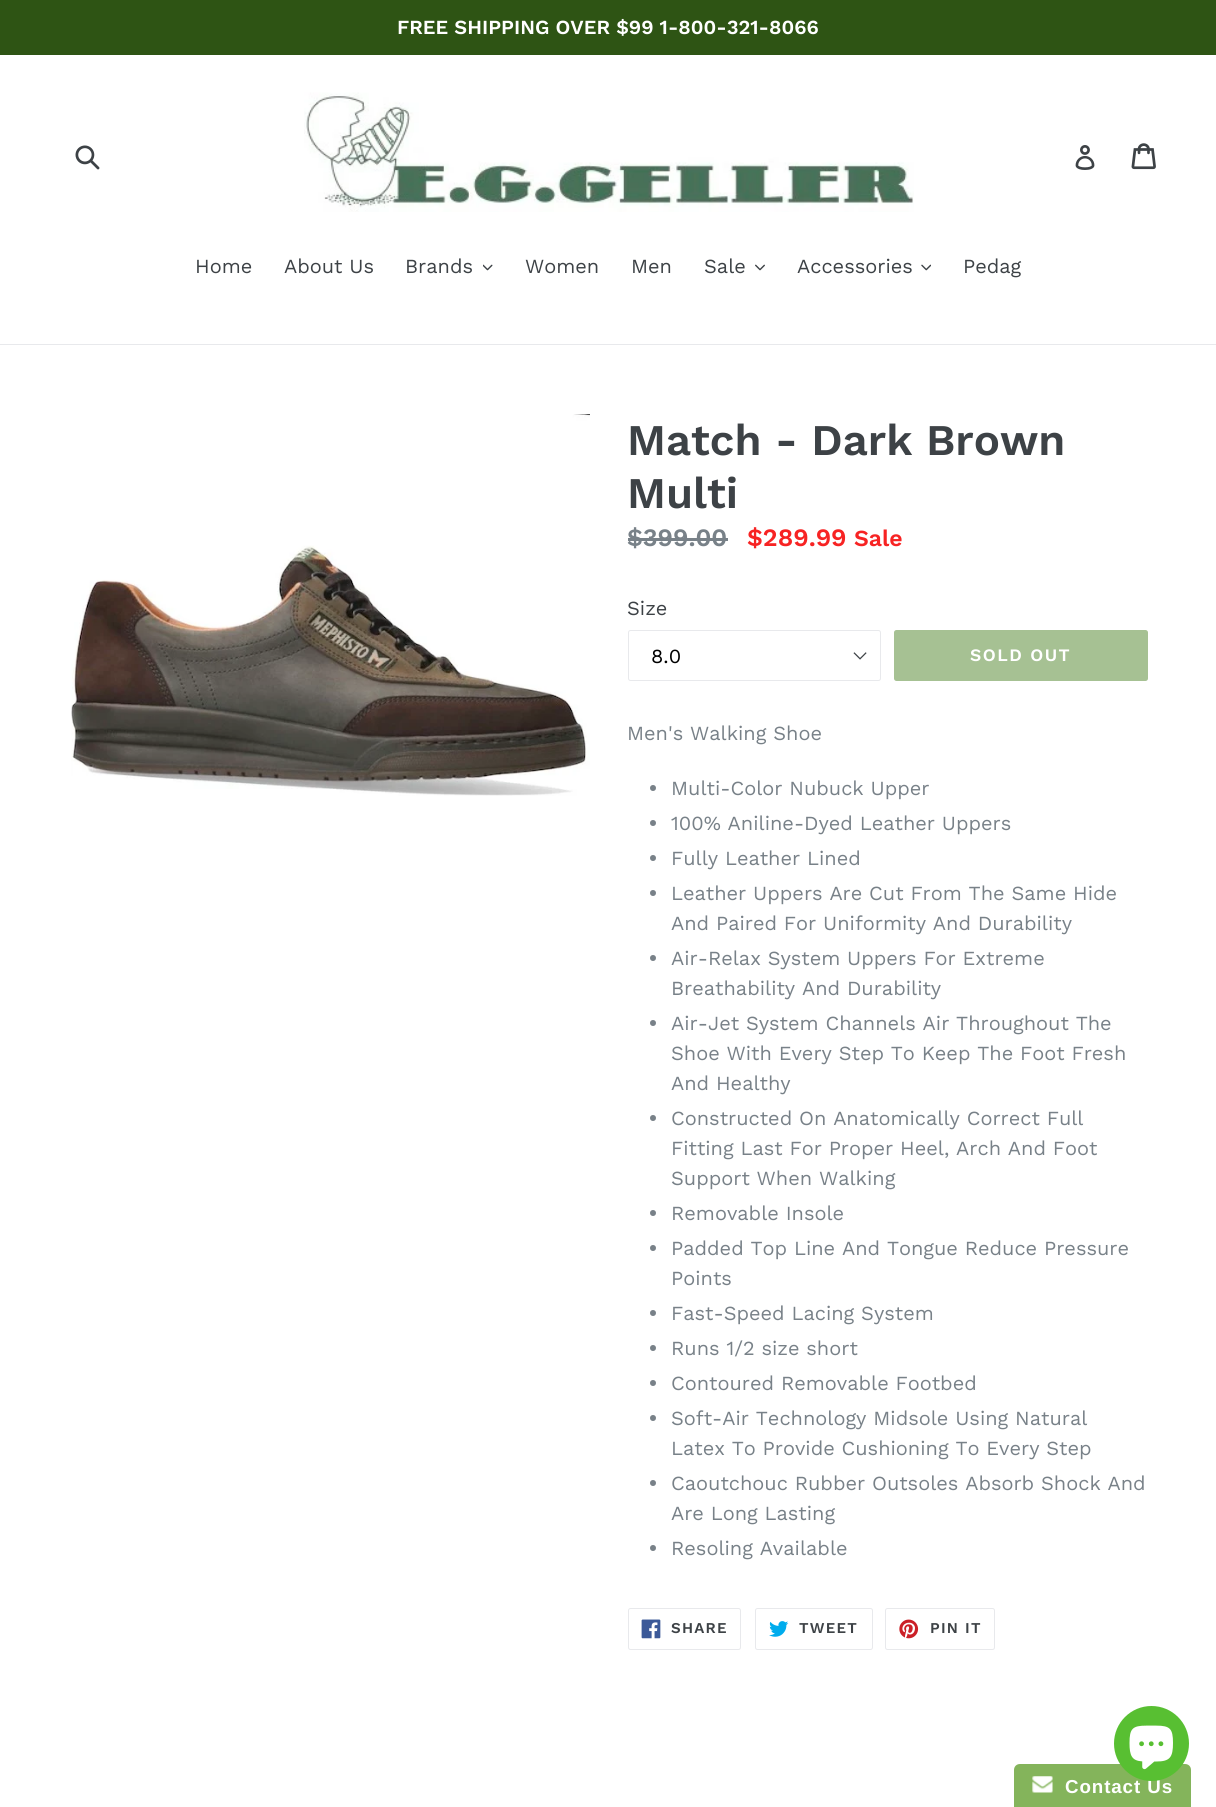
#include <cairo.h>
#include <math.h>
#include <stddef.h>


static void spaced_text(cairo_t *cr, double x, double y, const char *s, double letter, double word) {
    cairo_move_to(cr, x, y);
    while (*s) {
        char ch[5] = {0};
        int n = 0;
        do ch[n++] = *s++; while ((*s & 0xC0) == 0x80);
        cairo_show_text(cr, ch);
        cairo_rel_move_to(cr, letter + word * (*ch == ' '), 0);
    }
}

static void round_rect(cairo_t *cr, double x, double y, double w, double h, double r) {
    cairo_new_sub_path(cr);
    cairo_arc(cr, x + w - r, y + h - r, r, 0, M_PI / 2);
    cairo_arc(cr, x + r, y + h - r, r, M_PI / 2, M_PI);
    cairo_arc(cr, x + r, y + r, r, M_PI, 1.5 * M_PI);
    cairo_arc(cr, x + w - r, y + r, r, 1.5 * M_PI, 2 * M_PI);
    cairo_close_path(cr);
}

static void picture(cairo_t *cr, const char *path, double x, double y, double w, double h) {
    cairo_surface_t *image = cairo_image_surface_create_from_png(path);
    cairo_save(cr);
    cairo_set_source_surface(cr, image, x, y);
    cairo_rectangle(cr, x, y, w, h);
    cairo_fill(cr);
    cairo_restore(cr);
    cairo_surface_destroy(image);
}

int main(void) {
    cairo_surface_t *surface = cairo_image_surface_create(CAIRO_FORMAT_RGB24, 1216, 1807);
    cairo_t *cr = cairo_create(surface);
    cairo_font_options_t *options = cairo_font_options_create();
    cairo_font_options_set_hint_metrics(options, CAIRO_HINT_METRICS_OFF);
    cairo_font_options_set_hint_style(options, CAIRO_HINT_STYLE_NONE);
    cairo_set_font_options(cr, options);
    cairo_set_miter_limit(cr, 4);
    cairo_set_source_rgb(cr, 1, 1, 1);
    cairo_paint(cr);
    cairo_set_source_rgb(cr, 0.18, 0.329, 0.082);
    cairo_rectangle(cr, 0, 0, 1216, 55);
    cairo_fill(cr);
    cairo_select_font_face(cr, "Work Sans SemiBold", CAIRO_FONT_SLANT_NORMAL, CAIRO_FONT_WEIGHT_NORMAL);
    cairo_set_font_size(cr, 20);
    cairo_set_source_rgb(cr, 1, 1, 1);
    cairo_move_to(cr, 397, 34);
    cairo_show_text(cr, "FREE SHIPPING OVER $99 1-800-321-8066");
    picture(cr, "img1.png", 75, 145, 25, 25);
    picture(cr, "img2.png", 304, 92, 610, 120);
    picture(cr, "img3.png", 1075, 145, 20, 25);
    picture(cr, "img4.png", 1131, 143, 25, 27);
    cairo_set_source_rgb(cr, 0.91, 0.914, 0.922);
    cairo_rectangle(cr, 0, 344, 1216, 1);
    cairo_fill(cr);
    cairo_select_font_face(cr, "Work Sans", CAIRO_FONT_SLANT_NORMAL, CAIRO_FONT_WEIGHT_NORMAL);
    cairo_set_source_rgb(cr, 0.239, 0.259, 0.275);
    cairo_move_to(cr, 195, 273);
    cairo_show_text(cr, "Home");
    cairo_move_to(cr, 284, 273);
    cairo_show_text(cr, "About Us");
    cairo_move_to(cr, 405, 273);
    cairo_show_text(cr, "Brands");
    picture(cr, "img5.png", 483, 264, 10, 7);
    cairo_move_to(cr, 525, 273);
    cairo_show_text(cr, "Women");
    cairo_move_to(cr, 631, 273);
    cairo_show_text(cr, "Men");
    cairo_move_to(cr, 704, 273);
    cairo_show_text(cr, "Sale");
    picture(cr, "img6.png", 755, 264, 10, 7);
    cairo_move_to(cr, 797, 273);
    cairo_show_text(cr, "Accessories");
    picture(cr, "img7.png", 921, 264, 10, 7);
    cairo_move_to(cr, 963, 273);
    cairo_show_text(cr, "Pedag");
    picture(cr, "img8.png", 71, 414, 519, 382);
    cairo_select_font_face(cr, "Work Sans SemiBold", CAIRO_FONT_SLANT_NORMAL, CAIRO_FONT_WEIGHT_NORMAL);
    cairo_set_font_size(cr, 43.75);
    cairo_move_to(cr, 627, 455);
    cairo_show_text(cr, "Match - Dark Brown");
    cairo_move_to(cr, 627, 508);
    cairo_show_text(cr, "Multi");
    cairo_set_font_size(cr, 25);
    cairo_set_source_rgb(cr, 0.471, 0.506, 0.533);
    cairo_move_to(cr, 627, 546);
    cairo_show_text(cr, "$399.00");
    cairo_rectangle(cr, 628, 538, 100, 3);
    cairo_fill(cr);
    cairo_set_source_rgb(cr, 0.965, 0.137, 0.137);
    cairo_move_to(cr, 747, 546);
    cairo_show_text(cr, "$289.99");
    cairo_set_font_size(cr, 23);
    cairo_move_to(cr, 854, 546);
    cairo_show_text(cr, "Sale");
    cairo_select_font_face(cr, "Work Sans", CAIRO_FONT_SLANT_NORMAL, CAIRO_FONT_WEIGHT_NORMAL);
    cairo_set_font_size(cr, 20);
    cairo_set_source_rgb(cr, 0.239, 0.259, 0.275);
    cairo_move_to(cr, 627, 615);
    cairo_show_text(cr, "Size");
    picture(cr, "img9.png", 853, 652, 14, 8);
    round_rect(cr, 628.5, 630.5, 252, 50, 2);
    cairo_set_source_rgb(cr, 0.91, 0.914, 0.922);
    cairo_set_line_width(cr, 1);
    cairo_stroke(cr);
    cairo_set_source_rgb(cr, 0, 0, 0);
    cairo_move_to(cr, 651, 663);
    cairo_show_text(cr, "8.0");
    cairo_set_source_rgb(cr, 0.651, 0.757, 0.576);
    round_rect(cr, 894, 630, 254, 51, 2.5);
    cairo_fill(cr);
    cairo_select_font_face(cr, "Work Sans SemiBold", CAIRO_FONT_SLANT_NORMAL, CAIRO_FONT_WEIGHT_NORMAL);
    cairo_set_font_size(cr, 17.5);
    cairo_set_source_rgb(cr, 1, 1, 1);
    spaced_text(cr, 970, 661, "SOLD OUT", 1.5, 0);
    cairo_select_font_face(cr, "Work Sans", CAIRO_FONT_SLANT_NORMAL, CAIRO_FONT_WEIGHT_NORMAL);
    cairo_set_font_size(cr, 20);
    cairo_set_source_rgb(cr, 0.471, 0.506, 0.533);
    cairo_move_to(cr, 627, 740);
    cairo_show_text(cr, "Men's Walking Shoe");
    cairo_new_path(cr);
    cairo_arc(cr, 653, 788, 3, 0, 2 * M_PI);
    cairo_fill(cr);
    cairo_move_to(cr, 671, 795);
    cairo_show_text(cr, "Multi-Color Nubuck Upper");
    cairo_new_path(cr);
    cairo_arc(cr, 653, 823, 3, 0, 2 * M_PI);
    cairo_fill(cr);
    cairo_move_to(cr, 671, 830);
    cairo_show_text(cr, "100% Aniline-Dyed Leather Uppers");
    cairo_new_path(cr);
    cairo_arc(cr, 653, 858, 3, 0, 2 * M_PI);
    cairo_fill(cr);
    cairo_move_to(cr, 671, 865);
    cairo_show_text(cr, "Fully Leather Lined");
    cairo_new_path(cr);
    cairo_arc(cr, 653, 893, 3, 0, 2 * M_PI);
    cairo_fill(cr);
    cairo_move_to(cr, 671, 900);
    cairo_show_text(cr, "Leather Uppers Are Cut From The Same Hide");
    cairo_move_to(cr, 671, 930);
    cairo_show_text(cr, "And Paired For Uniformity And Durability");
    cairo_new_path(cr);
    cairo_arc(cr, 653, 958, 3, 0, 2 * M_PI);
    cairo_fill(cr);
    cairo_move_to(cr, 671, 965);
    cairo_show_text(cr, "Air-Relax System Uppers For Extreme");
    cairo_move_to(cr, 671, 995);
    cairo_show_text(cr, "Breathability And Durability");
    cairo_new_path(cr);
    cairo_arc(cr, 653, 1023, 3, 0, 2 * M_PI);
    cairo_fill(cr);
    cairo_move_to(cr, 671, 1030);
    cairo_show_text(cr, "Air-Jet System Channels Air Throughout The");
    cairo_move_to(cr, 671, 1060);
    cairo_show_text(cr, "Shoe With Every Step To Keep The Foot Fresh");
    cairo_move_to(cr, 671, 1090);
    cairo_show_text(cr, "And Healthy");
    cairo_new_path(cr);
    cairo_arc(cr, 653, 1118, 3, 0, 2 * M_PI);
    cairo_fill(cr);
    cairo_move_to(cr, 671, 1125);
    cairo_show_text(cr, "Constructed On Anatomically Correct Full");
    cairo_move_to(cr, 671, 1155);
    cairo_show_text(cr, "Fitting Last For Proper Heel, Arch And Foot");
    cairo_move_to(cr, 671, 1185);
    cairo_show_text(cr, "Support When Walking");
    cairo_new_path(cr);
    cairo_arc(cr, 653, 1213, 3, 0, 2 * M_PI);
    cairo_fill(cr);
    cairo_move_to(cr, 671, 1220);
    cairo_show_text(cr, "Removable Insole");
    cairo_new_path(cr);
    cairo_arc(cr, 653, 1248, 3, 0, 2 * M_PI);
    cairo_fill(cr);
    cairo_move_to(cr, 671, 1255);
    cairo_show_text(cr, "Padded Top Line And Tongue Reduce Pressure");
    cairo_move_to(cr, 671, 1285);
    cairo_show_text(cr, "Points");
    cairo_new_path(cr);
    cairo_arc(cr, 653, 1313, 3, 0, 2 * M_PI);
    cairo_fill(cr);
    cairo_move_to(cr, 671, 1320);
    cairo_show_text(cr, "Fast-Speed Lacing System");
    cairo_new_path(cr);
    cairo_arc(cr, 653, 1348, 3, 0, 2 * M_PI);
    cairo_fill(cr);
    cairo_move_to(cr, 671, 1355);
    cairo_show_text(cr, "Runs 1/2 size short");
    cairo_new_path(cr);
    cairo_arc(cr, 653, 1383, 3, 0, 2 * M_PI);
    cairo_fill(cr);
    cairo_move_to(cr, 671, 1390);
    cairo_show_text(cr, "Contoured Removable Footbed");
    cairo_new_path(cr);
    cairo_arc(cr, 653, 1418, 3, 0, 2 * M_PI);
    cairo_fill(cr);
    cairo_move_to(cr, 671, 1425);
    cairo_show_text(cr, "Soft-Air Technology Midsole Using Natural");
    cairo_move_to(cr, 671, 1455);
    cairo_show_text(cr, "Latex To Provide Cushioning To Every Step");
    cairo_new_path(cr);
    cairo_arc(cr, 653, 1483, 3, 0, 2 * M_PI);
    cairo_fill(cr);
    cairo_move_to(cr, 671, 1490);
    cairo_show_text(cr, "Caoutchouc Rubber Outsoles Absorb Shock And");
    cairo_move_to(cr, 671, 1520);
    cairo_show_text(cr, "Are Long Lasting");
    cairo_new_path(cr);
    cairo_arc(cr, 653, 1548, 3, 0, 2 * M_PI);
    cairo_fill(cr);
    cairo_move_to(cr, 671, 1555);
    cairo_show_text(cr, "Resoling Available");
    round_rect(cr, 628.5, 1608.5, 112, 41, 2);
    cairo_set_source_rgb(cr, 0.91, 0.914, 0.922);
    cairo_stroke(cr);
    picture(cr, "img10.png", 641, 1619, 20, 20);
    cairo_select_font_face(cr, "Work Sans SemiBold", CAIRO_FONT_SLANT_NORMAL, CAIRO_FONT_WEIGHT_NORMAL);
    cairo_set_font_size(cr, 15);
    cairo_set_source_rgb(cr, 0.239, 0.259, 0.275);
    spaced_text(cr, 671, 1633, "SHARE", 1.25, 0);
    round_rect(cr, 755.5, 1608.5, 117, 41, 2);
    cairo_set_source_rgb(cr, 0.91, 0.914, 0.922);
    cairo_stroke(cr);
    picture(cr, "img11.png", 769, 1621, 20, 16);
    cairo_set_source_rgb(cr, 0.239, 0.259, 0.275);
    spaced_text(cr, 799, 1633, "TWEET", 1.25, 0);
    round_rect(cr, 885.5, 1608.5, 109, 41, 2);
    cairo_set_source_rgb(cr, 0.91, 0.914, 0.922);
    cairo_stroke(cr);
    picture(cr, "img12.png", 899, 1619, 20, 20);
    cairo_set_source_rgb(cr, 0.239, 0.259, 0.275);
    spaced_text(cr, 930, 1633, "PIN IT", 1.25, 0);
    cairo_set_source_rgb(cr, 0.518, 0.706, 0.357);
    cairo_new_path(cr);
    cairo_move_to(cr, 1020, 1764);
    cairo_line_to(cr, 1185, 1764);
    cairo_curve_to(cr, 1188.5, 1764, 1191, 1766.5, 1191, 1770);
    cairo_line_to(cr, 1191, 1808);
    cairo_line_to(cr, 1014, 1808);
    cairo_line_to(cr, 1014, 1770);
    cairo_curve_to(cr, 1014, 1766.5, 1016.5, 1764, 1020, 1764);
    cairo_close_path(cr);
    cairo_fill(cr);
    cairo_select_font_face(cr, "Liberation Sans", CAIRO_FONT_SLANT_NORMAL, CAIRO_FONT_WEIGHT_BOLD);
    cairo_set_font_size(cr, 18.75);
    cairo_set_source_rgb(cr, 1, 1, 1);
    spaced_text(cr, 1065, 1793, "Contact Us", 0.9, 0);
    cairo_set_source_rgb(cr, 0.345, 0.749, 0.196);
    cairo_new_path(cr);
    cairo_arc(cr, 1151.5, 1743.5, 37.5, 0, 2 * M_PI);
    cairo_fill(cr);
    picture(cr, "img13.png", 1129, 1725, 44, 45);
    picture(cr, "img14.png", 1032, 1776, 21, 17);
    cairo_surface_write_to_png(surface, "page.png");
    cairo_font_options_destroy(options);
    cairo_destroy(cr);
    cairo_surface_destroy(surface);
    return 0;
}
